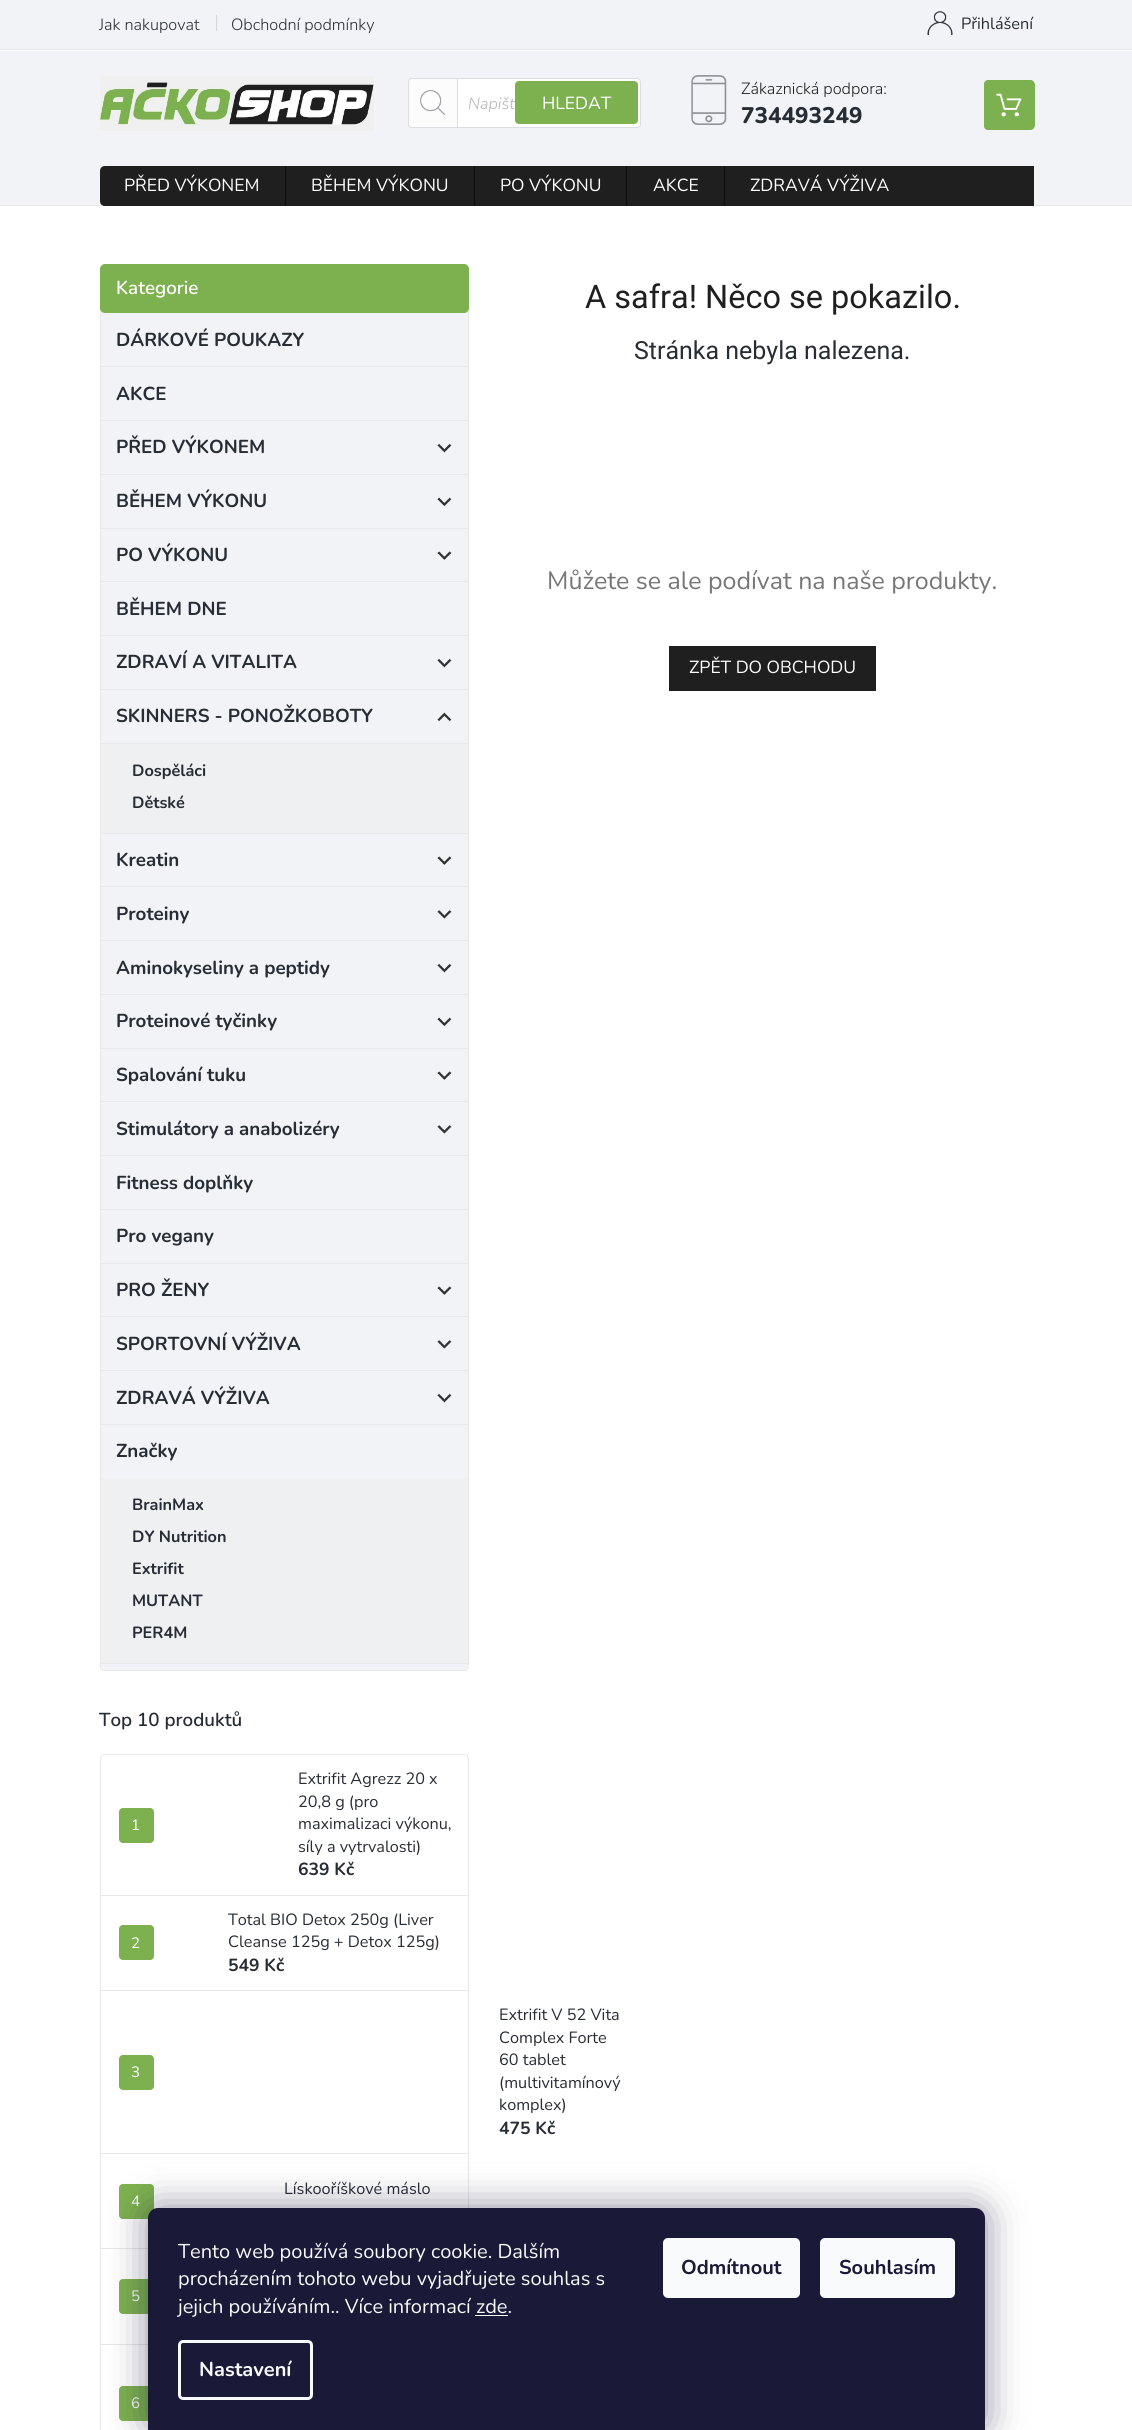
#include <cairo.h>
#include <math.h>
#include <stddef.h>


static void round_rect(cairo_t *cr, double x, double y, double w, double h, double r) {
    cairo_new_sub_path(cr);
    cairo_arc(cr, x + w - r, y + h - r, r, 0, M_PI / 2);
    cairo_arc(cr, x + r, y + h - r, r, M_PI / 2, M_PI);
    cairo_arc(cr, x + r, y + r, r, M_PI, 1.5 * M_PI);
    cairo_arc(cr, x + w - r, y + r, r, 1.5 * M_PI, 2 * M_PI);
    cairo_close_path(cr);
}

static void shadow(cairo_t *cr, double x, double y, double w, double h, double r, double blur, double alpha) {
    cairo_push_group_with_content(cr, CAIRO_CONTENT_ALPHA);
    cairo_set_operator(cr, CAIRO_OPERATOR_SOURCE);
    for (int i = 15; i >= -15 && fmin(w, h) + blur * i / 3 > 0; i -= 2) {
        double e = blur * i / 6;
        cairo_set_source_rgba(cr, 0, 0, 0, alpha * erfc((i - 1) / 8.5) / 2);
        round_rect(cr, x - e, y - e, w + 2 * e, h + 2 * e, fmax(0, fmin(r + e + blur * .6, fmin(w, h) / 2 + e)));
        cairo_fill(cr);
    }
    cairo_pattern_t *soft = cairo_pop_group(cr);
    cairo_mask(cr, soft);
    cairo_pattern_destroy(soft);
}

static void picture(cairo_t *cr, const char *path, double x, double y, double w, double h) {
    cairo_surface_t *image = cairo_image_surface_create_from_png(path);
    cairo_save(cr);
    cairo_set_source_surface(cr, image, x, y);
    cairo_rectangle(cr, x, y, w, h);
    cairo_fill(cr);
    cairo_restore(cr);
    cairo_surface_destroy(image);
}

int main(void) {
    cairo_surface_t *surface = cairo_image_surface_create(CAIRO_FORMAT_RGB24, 1132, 2430);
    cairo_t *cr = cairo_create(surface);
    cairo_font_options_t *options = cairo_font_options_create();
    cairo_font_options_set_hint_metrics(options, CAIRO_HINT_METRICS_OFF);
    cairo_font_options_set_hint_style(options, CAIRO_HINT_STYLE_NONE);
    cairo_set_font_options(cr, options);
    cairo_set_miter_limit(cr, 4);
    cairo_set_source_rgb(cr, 1, 1, 1);
    cairo_paint(cr);
    cairo_set_source_rgb(cr, 0.949, 0.953, 0.961);
    cairo_rectangle(cr, 0, 0, 1132, 49);
    cairo_fill(cr);
    cairo_set_source_rgb(cr, 0.906, 0.91, 0.914);
    cairo_rectangle(cr, 0, 49, 1132, 1);
    cairo_fill(cr);
    cairo_select_font_face(cr, "Nunito Light", CAIRO_FONT_SLANT_NORMAL, CAIRO_FONT_WEIGHT_NORMAL);
    cairo_set_font_size(cr, 16.25);
    cairo_set_source_rgb(cr, 0.157, 0.176, 0.208);
    cairo_move_to(cr, 99, 30);
    cairo_show_text(cr, "Jak nakupovat");
    cairo_set_source_rgb(cr, 0.831, 0.835, 0.847);
    cairo_rectangle(cr, 216, 15, 1, 16);
    cairo_fill(cr);
    cairo_set_source_rgb(cr, 0.157, 0.176, 0.208);
    cairo_move_to(cr, 231, 30);
    cairo_show_text(cr, "Obchodní podmínky");
    picture(cr, "img1.png", 927, 11, 26, 24);
    cairo_select_font_face(cr, "Nunito", CAIRO_FONT_SLANT_NORMAL, CAIRO_FONT_WEIGHT_NORMAL);
    cairo_move_to(cr, 961, 29);
    cairo_show_text(cr, "Přihlášení");
    cairo_set_source_rgb(cr, 0.949, 0.953, 0.961);
    cairo_rectangle(cr, 0, 51, 1132, 154);
    cairo_fill(cr);
    cairo_set_source_rgb(cr, 0.906, 0.91, 0.914);
    cairo_rectangle(cr, 0, 205, 1132, 1);
    cairo_fill(cr);
    picture(cr, "img2.png", 100, 76, 274, 55);
    cairo_set_source_rgb(cr, 1, 1, 1);
    round_rect(cr, 408.5, 78.5, 232, 49, 3.5);
    cairo_fill_preserve(cr);
    cairo_set_source_rgb(cr, 0.863, 0.867, 0.878);
    cairo_set_line_width(cr, 1);
    cairo_stroke(cr);
    cairo_set_source_rgb(cr, 0.988, 0.988, 0.988);
    cairo_new_path(cr);
    cairo_move_to(cr, 412, 78);
    cairo_line_to(cr, 458, 78);
    cairo_line_to(cr, 458, 128);
    cairo_line_to(cr, 412, 128);
    cairo_curve_to(cr, 410, 128, 408, 126, 408, 124);
    cairo_line_to(cr, 408, 82);
    cairo_curve_to(cr, 408, 80, 410, 78, 412, 78);
    cairo_close_path(cr);
    cairo_fill(cr);
    picture(cr, "img3.png", 420, 90, 25, 25);
    cairo_new_path(cr);
    cairo_move_to(cr, 412, 78.5);
    cairo_line_to(cr, 457.5, 78.5);
    cairo_line_to(cr, 457.5, 127.5);
    cairo_line_to(cr, 412, 127.5);
    cairo_curve_to(cr, 410, 127.5, 408.5, 126, 408.5, 124);
    cairo_line_to(cr, 408.5, 82);
    cairo_curve_to(cr, 408.5, 80, 410, 78.5, 412, 78.5);
    cairo_close_path(cr);
    cairo_set_source_rgb(cr, 0.863, 0.867, 0.878);
    cairo_stroke(cr);
    cairo_select_font_face(cr, "Nunito Light", CAIRO_FONT_SLANT_ITALIC, CAIRO_FONT_WEIGHT_NORMAL);
    cairo_set_source_rgb(cr, 0.714, 0.714, 0.714);
    cairo_move_to(cr, 468, 109);
    cairo_show_text(cr, "Napišt");
    cairo_set_source_rgb(cr, 0.49, 0.694, 0.31);
    round_rect(cr, 515.5, 81.5, 122, 42, 3.5);
    cairo_fill_preserve(cr);
    cairo_stroke(cr);
    cairo_select_font_face(cr, "Nunito", CAIRO_FONT_SLANT_NORMAL, CAIRO_FONT_WEIGHT_NORMAL);
    cairo_set_font_size(cr, 17.5);
    cairo_set_source_rgb(cr, 1, 1, 1);
    cairo_move_to(cr, 542, 109);
    cairo_show_text(cr, "HLEDAT");
    picture(cr, "img4.png", 691, 75, 36, 50);
    cairo_select_font_face(cr, "Nunito Light", CAIRO_FONT_SLANT_NORMAL, CAIRO_FONT_WEIGHT_NORMAL);
    cairo_set_font_size(cr, 16.25);
    cairo_set_source_rgb(cr, 0.125, 0.122, 0.122);
    cairo_move_to(cr, 741, 94);
    cairo_show_text(cr, "Zákaznická podpora:");
    cairo_select_font_face(cr, "Nunito ExtraBold", CAIRO_FONT_SLANT_NORMAL, CAIRO_FONT_WEIGHT_NORMAL);
    cairo_set_font_size(cr, 22.5);
    cairo_set_source_rgb(cr, 0.157, 0.176, 0.208);
    cairo_move_to(cr, 741, 123);
    cairo_show_text(cr, "734493249");
    round_rect(cr, 984.5, 80.5, 49, 49, 3.5);
    cairo_set_source_rgb(cr, 0.49, 0.694, 0.31);
    cairo_stroke(cr);
    round_rect(cr, 984, 80, 51, 50, 5);
    cairo_fill(cr);
    picture(cr, "img5.png", 996, 93, 26, 24);
    cairo_set_source_rgb(cr, 0.125, 0.122, 0.122);
    cairo_new_path(cr);
    cairo_move_to(cr, 105, 166);
    cairo_line_to(cr, 1034, 166);
    cairo_line_to(cr, 1034, 206);
    cairo_line_to(cr, 105, 206);
    cairo_curve_to(cr, 102, 206, 100, 204, 100, 201);
    cairo_line_to(cr, 100, 171);
    cairo_curve_to(cr, 100, 168, 102, 166, 105, 166);
    cairo_close_path(cr);
    cairo_fill(cr);
    cairo_select_font_face(cr, "Nunito", CAIRO_FONT_SLANT_NORMAL, CAIRO_FONT_WEIGHT_NORMAL);
    cairo_set_font_size(cr, 17.5);
    cairo_set_source_rgb(cr, 1, 1, 1);
    cairo_move_to(cr, 124, 191);
    cairo_show_text(cr, "PŘED VÝKONEM");
    cairo_set_source_rgb(cr, 0.051, 0.047, 0.047);
    cairo_rectangle(cr, 285, 166, 1, 40);
    cairo_fill(cr);
    cairo_set_source_rgb(cr, 1, 1, 1);
    cairo_move_to(cr, 311, 191);
    cairo_show_text(cr, "BĚHEM VÝKONU");
    cairo_set_source_rgb(cr, 0.051, 0.047, 0.047);
    cairo_rectangle(cr, 474, 166, 1, 40);
    cairo_fill(cr);
    cairo_set_source_rgb(cr, 1, 1, 1);
    cairo_move_to(cr, 500, 191);
    cairo_show_text(cr, "PO VÝKONU");
    cairo_set_source_rgb(cr, 0.051, 0.047, 0.047);
    cairo_rectangle(cr, 626, 166, 1, 40);
    cairo_fill(cr);
    cairo_set_source_rgb(cr, 1, 1, 1);
    cairo_move_to(cr, 653, 191);
    cairo_show_text(cr, "AKCE");
    cairo_set_source_rgb(cr, 0.051, 0.047, 0.047);
    cairo_rectangle(cr, 724, 166, 1, 40);
    cairo_fill(cr);
    cairo_set_source_rgb(cr, 1, 1, 1);
    cairo_move_to(cr, 750, 191);
    cairo_show_text(cr, "ZDRAVÁ VÝŽIVA");
    cairo_set_source_rgb(cr, 0.949, 0.953, 0.961);
    cairo_new_path(cr);
    cairo_move_to(cr, 100.5, 306.5);
    cairo_line_to(cr, 468.5, 306.5);
    cairo_line_to(cr, 468.5, 1666);
    cairo_curve_to(cr, 468.5, 1668.5, 466.5, 1670.5, 464, 1670.5);
    cairo_line_to(cr, 105, 1670.5);
    cairo_curve_to(cr, 102.5, 1670.5, 100.5, 1668.5, 100.5, 1666);
    cairo_close_path(cr);
    cairo_fill_preserve(cr);
    cairo_set_source_rgb(cr, 0.906, 0.91, 0.914);
    cairo_stroke(cr);
    cairo_set_source_rgb(cr, 0.49, 0.694, 0.31);
    round_rect(cr, 100.5, 264.5, 368, 48, 4.5);
    cairo_fill_preserve(cr);
    cairo_stroke(cr);
    cairo_select_font_face(cr, "Nunito SemiBold", CAIRO_FONT_SLANT_NORMAL, CAIRO_FONT_WEIGHT_NORMAL);
    cairo_set_font_size(cr, 18.75);
    cairo_set_source_rgb(cr, 1, 1, 1);
    cairo_move_to(cr, 116, 294);
    cairo_show_text(cr, "Kategorie");
    cairo_set_source_rgb(cr, 0.906, 0.91, 0.914);
    cairo_rectangle(cr, 101, 366, 367, 1);
    cairo_fill(cr);
    cairo_select_font_face(cr, "Nunito", CAIRO_FONT_SLANT_NORMAL, CAIRO_FONT_WEIGHT_BOLD);
    cairo_set_source_rgb(cr, 0.157, 0.176, 0.208);
    cairo_move_to(cr, 116, 346);
    cairo_show_text(cr, "DÁRKOVÉ POUKAZY");
    cairo_set_source_rgb(cr, 0.906, 0.91, 0.914);
    cairo_rectangle(cr, 101, 420, 367, 1);
    cairo_fill(cr);
    cairo_set_source_rgb(cr, 0.157, 0.176, 0.208);
    cairo_move_to(cr, 116, 400);
    cairo_show_text(cr, "AKCE");
    cairo_set_source_rgb(cr, 0.906, 0.91, 0.914);
    cairo_rectangle(cr, 101, 474, 367, 1);
    cairo_fill(cr);
    cairo_set_source_rgb(cr, 0.157, 0.176, 0.208);
    cairo_move_to(cr, 116, 453);
    cairo_show_text(cr, "PŘED VÝKONEM");
    picture(cr, "img6.png", 437, 443, 15, 10);
    cairo_set_source_rgb(cr, 0.906, 0.91, 0.914);
    cairo_rectangle(cr, 101, 528, 367, 1);
    cairo_fill(cr);
    cairo_set_source_rgb(cr, 0.157, 0.176, 0.208);
    cairo_move_to(cr, 116, 507);
    cairo_show_text(cr, "BĚHEM VÝKONU");
    picture(cr, "img7.png", 437, 497, 15, 10);
    cairo_set_source_rgb(cr, 0.906, 0.91, 0.914);
    cairo_rectangle(cr, 101, 581, 367, 1);
    cairo_fill(cr);
    cairo_set_source_rgb(cr, 0.157, 0.176, 0.208);
    cairo_move_to(cr, 116, 561);
    cairo_show_text(cr, "PO VÝKONU");
    picture(cr, "img8.png", 437, 551, 15, 9);
    cairo_set_source_rgb(cr, 0.906, 0.91, 0.914);
    cairo_rectangle(cr, 101, 635, 367, 1);
    cairo_fill(cr);
    cairo_set_source_rgb(cr, 0.157, 0.176, 0.208);
    cairo_move_to(cr, 116, 615);
    cairo_show_text(cr, "BĚHEM DNE");
    cairo_set_source_rgb(cr, 0.906, 0.91, 0.914);
    cairo_rectangle(cr, 101, 689, 367, 1);
    cairo_fill(cr);
    cairo_set_source_rgb(cr, 0.157, 0.176, 0.208);
    cairo_move_to(cr, 116, 668);
    cairo_show_text(cr, "ZDRAVÍ A VITALITA");
    picture(cr, "img6.png", 437, 658, 15, 10);
    cairo_set_source_rgb(cr, 0.906, 0.91, 0.914);
    cairo_rectangle(cr, 101, 743, 367, 1);
    cairo_fill(cr);
    cairo_set_source_rgb(cr, 0.157, 0.176, 0.208);
    cairo_move_to(cr, 116, 722);
    cairo_show_text(cr, "SKINNERS - PONOŽKOBOTY");
    picture(cr, "img9.png", 437, 712, 15, 10);
    cairo_set_source_rgb(cr, 0.937, 0.941, 0.945);
    cairo_rectangle(cr, 101, 744, 367, 89);
    cairo_fill(cr);
    cairo_set_source_rgb(cr, 0.906, 0.91, 0.914);
    cairo_rectangle(cr, 101, 833, 367, 1);
    cairo_fill(cr);
    cairo_set_font_size(cr, 16.25);
    cairo_set_source_rgb(cr, 0.157, 0.176, 0.208);
    cairo_move_to(cr, 132, 776);
    cairo_show_text(cr, "Dospěláci");
    cairo_move_to(cr, 132, 808);
    cairo_show_text(cr, "Dětské");
    cairo_set_source_rgb(cr, 0.906, 0.91, 0.914);
    cairo_rectangle(cr, 101, 886, 367, 1);
    cairo_fill(cr);
    cairo_set_font_size(cr, 18.75);
    cairo_set_source_rgb(cr, 0.157, 0.176, 0.208);
    cairo_move_to(cr, 116, 866);
    cairo_show_text(cr, "Kreatin");
    picture(cr, "img8.png", 437, 856, 15, 9);
    cairo_set_source_rgb(cr, 0.906, 0.91, 0.914);
    cairo_rectangle(cr, 101, 940, 367, 1);
    cairo_fill(cr);
    cairo_set_source_rgb(cr, 0.157, 0.176, 0.208);
    cairo_move_to(cr, 116, 920);
    cairo_show_text(cr, "Proteiny");
    picture(cr, "img10.png", 437, 910, 15, 9);
    cairo_set_source_rgb(cr, 0.906, 0.91, 0.914);
    cairo_rectangle(cr, 101, 994, 367, 1);
    cairo_fill(cr);
    cairo_set_source_rgb(cr, 0.157, 0.176, 0.208);
    cairo_move_to(cr, 116, 974);
    cairo_show_text(cr, "Aminokyseliny a peptidy");
    picture(cr, "img6.png", 437, 963, 15, 10);
    cairo_set_source_rgb(cr, 0.906, 0.91, 0.914);
    cairo_rectangle(cr, 101, 1048, 367, 1);
    cairo_fill(cr);
    cairo_set_source_rgb(cr, 0.157, 0.176, 0.208);
    cairo_move_to(cr, 116, 1027);
    cairo_show_text(cr, "Proteinové tyčinky");
    picture(cr, "img7.png", 437, 1017, 15, 10);
    cairo_set_source_rgb(cr, 0.906, 0.91, 0.914);
    cairo_rectangle(cr, 101, 1101, 367, 1);
    cairo_fill(cr);
    cairo_set_source_rgb(cr, 0.157, 0.176, 0.208);
    cairo_move_to(cr, 116, 1081);
    cairo_show_text(cr, "Spalování tuku");
    picture(cr, "img8.png", 437, 1071, 15, 9);
    cairo_set_source_rgb(cr, 0.906, 0.91, 0.914);
    cairo_rectangle(cr, 101, 1155, 367, 1);
    cairo_fill(cr);
    cairo_set_source_rgb(cr, 0.157, 0.176, 0.208);
    cairo_move_to(cr, 116, 1135);
    cairo_show_text(cr, "Stimulátory a anabolizéry");
    picture(cr, "img10.png", 437, 1125, 15, 9);
    cairo_set_source_rgb(cr, 0.906, 0.91, 0.914);
    cairo_rectangle(cr, 101, 1209, 367, 1);
    cairo_fill(cr);
    cairo_set_source_rgb(cr, 0.157, 0.176, 0.208);
    cairo_move_to(cr, 116, 1189);
    cairo_show_text(cr, "Fitness doplňky");
    cairo_set_source_rgb(cr, 0.906, 0.91, 0.914);
    cairo_rectangle(cr, 101, 1263, 367, 1);
    cairo_fill(cr);
    cairo_set_source_rgb(cr, 0.157, 0.176, 0.208);
    cairo_move_to(cr, 116, 1242);
    cairo_show_text(cr, "Pro vegany");
    cairo_set_source_rgb(cr, 0.906, 0.91, 0.914);
    cairo_rectangle(cr, 101, 1316, 367, 1);
    cairo_fill(cr);
    cairo_set_source_rgb(cr, 0.157, 0.176, 0.208);
    cairo_move_to(cr, 116, 1296);
    cairo_show_text(cr, "PRO ŽENY");
    picture(cr, "img8.png", 437, 1286, 15, 9);
    cairo_set_source_rgb(cr, 0.906, 0.91, 0.914);
    cairo_rectangle(cr, 101, 1370, 367, 1);
    cairo_fill(cr);
    cairo_set_source_rgb(cr, 0.157, 0.176, 0.208);
    cairo_move_to(cr, 116, 1350);
    cairo_show_text(cr, "SPORTOVNÍ VÝŽIVA");
    picture(cr, "img10.png", 437, 1340, 15, 9);
    cairo_set_source_rgb(cr, 0.906, 0.91, 0.914);
    cairo_rectangle(cr, 101, 1424, 367, 1);
    cairo_fill(cr);
    cairo_set_source_rgb(cr, 0.157, 0.176, 0.208);
    cairo_move_to(cr, 116, 1404);
    cairo_show_text(cr, "ZDRAVÁ VÝŽIVA");
    picture(cr, "img6.png", 437, 1393, 15, 10);
    cairo_move_to(cr, 116, 1457);
    cairo_show_text(cr, "Značky");
    cairo_set_source_rgb(cr, 0.937, 0.941, 0.945);
    cairo_rectangle(cr, 101, 1478, 367, 185);
    cairo_fill(cr);
    cairo_set_source_rgb(cr, 0.906, 0.91, 0.914);
    cairo_rectangle(cr, 101, 1663, 367, 1);
    cairo_fill(cr);
    cairo_set_font_size(cr, 16.25);
    cairo_set_source_rgb(cr, 0.157, 0.176, 0.208);
    cairo_move_to(cr, 132, 1510);
    cairo_show_text(cr, "BrainMax");
    cairo_move_to(cr, 132, 1542);
    cairo_show_text(cr, "DY Nutrition");
    cairo_move_to(cr, 132, 1574);
    cairo_show_text(cr, "Extrifit");
    cairo_move_to(cr, 132, 1606);
    cairo_show_text(cr, "MUTANT");
    cairo_move_to(cr, 132, 1638);
    cairo_show_text(cr, "PER4M");
    cairo_select_font_face(cr, "Nunito SemiBold", CAIRO_FONT_SLANT_NORMAL, CAIRO_FONT_WEIGHT_NORMAL);
    cairo_set_font_size(cr, 18.75);
    cairo_move_to(cr, 99, 1726);
    cairo_show_text(cr, "Top 10 produktů");
    round_rect(cr, 100.5, 1754.5, 368, 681, 4.5);
    cairo_set_source_rgb(cr, 0.906, 0.91, 0.914);
    cairo_stroke(cr);
    cairo_rectangle(cr, 101, 1895, 367, 1);
    cairo_fill(cr);
    cairo_set_source_rgb(cr, 0.49, 0.694, 0.31);
    round_rect(cr, 119.5, 1808.5, 34, 34, 3.5);
    cairo_fill_preserve(cr);
    cairo_stroke(cr);
    cairo_select_font_face(cr, "Nunito", CAIRO_FONT_SLANT_NORMAL, CAIRO_FONT_WEIGHT_NORMAL);
    cairo_set_font_size(cr, 15);
    cairo_set_source_rgb(cr, 1, 1, 1);
    cairo_move_to(cr, 131, 1830);
    cairo_show_text(cr, "1");
    cairo_set_font_size(cr, 16.25);
    cairo_set_source_rgb(cr, 0.157, 0.176, 0.208);
    cairo_move_to(cr, 298, 1784);
    cairo_show_text(cr, "Extrifit Agrezz 20 x");
    cairo_move_to(cr, 298, 1807);
    cairo_show_text(cr, "20,8 g (pro");
    cairo_move_to(cr, 298, 1829);
    cairo_show_text(cr, "maximalizaci výkonu,");
    cairo_move_to(cr, 298, 1852);
    cairo_show_text(cr, "síly a vytrvalosti)");
    cairo_select_font_face(cr, "Nunito", CAIRO_FONT_SLANT_NORMAL, CAIRO_FONT_WEIGHT_BOLD);
    cairo_set_font_size(cr, 17.5);
    cairo_move_to(cr, 298, 1875);
    cairo_show_text(cr, "639 Kč");
    cairo_set_source_rgb(cr, 0.906, 0.91, 0.914);
    cairo_rectangle(cr, 101, 1990, 367, 1);
    cairo_fill(cr);
    cairo_set_source_rgb(cr, 0.49, 0.694, 0.31);
    round_rect(cr, 119.5, 1925.5, 34, 34, 3.5);
    cairo_fill_preserve(cr);
    cairo_stroke(cr);
    cairo_select_font_face(cr, "Nunito", CAIRO_FONT_SLANT_NORMAL, CAIRO_FONT_WEIGHT_NORMAL);
    cairo_set_font_size(cr, 15);
    cairo_set_source_rgb(cr, 1, 1, 1);
    cairo_move_to(cr, 131, 1948);
    cairo_show_text(cr, "2");
    cairo_set_font_size(cr, 16.25);
    cairo_set_source_rgb(cr, 0.157, 0.176, 0.208);
    cairo_move_to(cr, 228, 1925);
    cairo_show_text(cr, "Total BIO Detox 250g (Liver");
    cairo_move_to(cr, 228, 1947);
    cairo_show_text(cr, "Cleanse 125g + Detox 125g)");
    cairo_select_font_face(cr, "Nunito", CAIRO_FONT_SLANT_NORMAL, CAIRO_FONT_WEIGHT_BOLD);
    cairo_set_font_size(cr, 17.5);
    cairo_move_to(cr, 228, 1971);
    cairo_show_text(cr, "549 Kč");
    cairo_set_source_rgb(cr, 0.906, 0.91, 0.914);
    cairo_rectangle(cr, 101, 2153, 367, 1);
    cairo_fill(cr);
    cairo_set_source_rgb(cr, 0.49, 0.694, 0.31);
    round_rect(cr, 119.5, 2055.5, 34, 34, 3.5);
    cairo_fill_preserve(cr);
    cairo_stroke(cr);
    cairo_select_font_face(cr, "Nunito", CAIRO_FONT_SLANT_NORMAL, CAIRO_FONT_WEIGHT_NORMAL);
    cairo_set_font_size(cr, 15);
    cairo_set_source_rgb(cr, 1, 1, 1);
    cairo_move_to(cr, 131, 2077);
    cairo_show_text(cr, "3");
    cairo_set_font_size(cr, 16.25);
    cairo_set_source_rgb(cr, 0.157, 0.176, 0.208);
    cairo_move_to(cr, 499, 2020);
    cairo_show_text(cr, "Extrifit V 52 Vita");
    cairo_move_to(cr, 499, 2043);
    cairo_show_text(cr, "Complex Forte");
    cairo_move_to(cr, 499, 2065);
    cairo_show_text(cr, "60 tablet");
    cairo_move_to(cr, 499, 2088);
    cairo_show_text(cr, "(multivitamínový");
    cairo_move_to(cr, 499, 2110);
    cairo_show_text(cr, "komplex)");
    cairo_select_font_face(cr, "Nunito", CAIRO_FONT_SLANT_NORMAL, CAIRO_FONT_WEIGHT_BOLD);
    cairo_set_font_size(cr, 17.5);
    cairo_move_to(cr, 499, 2134);
    cairo_show_text(cr, "475 Kč");
    cairo_set_source_rgb(cr, 0.906, 0.91, 0.914);
    cairo_rectangle(cr, 101, 2248, 47, 1);
    cairo_fill(cr);
    cairo_select_font_face(cr, "Nunito", CAIRO_FONT_SLANT_NORMAL, CAIRO_FONT_WEIGHT_NORMAL);
    cairo_set_font_size(cr, 16.25);
    cairo_set_source_rgb(cr, 0.157, 0.176, 0.208);
    cairo_move_to(cr, 284, 2194);
    cairo_show_text(cr, "Lískooříškové máslo");
    cairo_set_source_rgb(cr, 0.49, 0.694, 0.31);
    round_rect(cr, 119.5, 2184.5, 34, 34, 3.5);
    cairo_fill_preserve(cr);
    cairo_stroke(cr);
    cairo_set_font_size(cr, 15);
    cairo_set_source_rgb(cr, 1, 1, 1);
    cairo_move_to(cr, 131, 2206);
    cairo_show_text(cr, "4");
    cairo_set_source_rgb(cr, 0.906, 0.91, 0.914);
    cairo_rectangle(cr, 101, 2344, 47, 1);
    cairo_fill(cr);
    cairo_set_source_rgb(cr, 0.49, 0.694, 0.31);
    round_rect(cr, 119.5, 2279.5, 34, 34, 3.5);
    cairo_fill_preserve(cr);
    cairo_stroke(cr);
    cairo_set_source_rgb(cr, 1, 1, 1);
    cairo_move_to(cr, 131, 2301);
    cairo_show_text(cr, "5");
    cairo_set_source_rgb(cr, 0.49, 0.694, 0.31);
    round_rect(cr, 119.5, 2386.5, 34, 34, 3.5);
    cairo_fill_preserve(cr);
    cairo_stroke(cr);
    cairo_set_source_rgb(cr, 1, 1, 1);
    cairo_move_to(cr, 131, 2408);
    cairo_show_text(cr, "6");
    cairo_select_font_face(cr, "Roboto", CAIRO_FONT_SLANT_NORMAL, CAIRO_FONT_WEIGHT_NORMAL);
    cairo_set_font_size(cr, 32.5);
    cairo_set_source_rgb(cr, 0.125, 0.122, 0.122);
    cairo_move_to(cr, 585, 308);
    cairo_show_text(cr, "A safra! Něco se pokazilo.");
    cairo_set_font_size(cr, 25);
    cairo_set_source_rgb(cr, 0.157, 0.176, 0.208);
    cairo_move_to(cr, 634, 359);
    cairo_show_text(cr, "Stránka nebyla nalezena.");
    cairo_select_font_face(cr, "Nunito", CAIRO_FONT_SLANT_NORMAL, CAIRO_FONT_WEIGHT_NORMAL);
    cairo_set_source_rgb(cr, 0.463, 0.463, 0.463);
    cairo_move_to(cr, 547, 589);
    cairo_show_text(cr, "Můžete se ale podívat na naše produkty.");
    cairo_set_source_rgb(cr, 0.125, 0.122, 0.122);
    cairo_rectangle(cr, 669, 646, 207, 45);
    cairo_fill(cr);
    cairo_set_font_size(cr, 17.5);
    cairo_set_source_rgb(cr, 1, 1, 1);
    cairo_move_to(cr, 689, 673);
    cairo_show_text(cr, "ZPĚT DO OBCHODU");
    cairo_set_source_rgb(cr, 0.106, 0.098, 0.224);
    shadow(cr, 148, 2208, 837, 222, 10, 19, 0.5);
    cairo_set_source_rgb(cr, 0.102, 0.098, 0.216);
    cairo_new_path(cr);
    cairo_move_to(cr, 158, 2208);
    cairo_line_to(cr, 975, 2208);
    cairo_curve_to(cr, 980.5, 2208, 985, 2212.5, 985, 2218);
    cairo_line_to(cr, 985, 2430);
    cairo_line_to(cr, 148, 2430);
    cairo_line_to(cr, 148, 2218);
    cairo_curve_to(cr, 148, 2212.5, 152.5, 2208, 158, 2208);
    cairo_close_path(cr);
    cairo_fill(cr);
    cairo_set_font_size(cr, 20);
    cairo_set_source_rgb(cr, 0.973, 0.98, 0.984);
    cairo_move_to(cr, 178, 2258);
    cairo_show_text(cr, "Tento web používá soubory cookie. Dalším");
    cairo_move_to(cr, 178, 2285);
    cairo_show_text(cr, "procházením tohoto webu vyjadřujete souhlas s");
    cairo_move_to(cr, 178, 2313);
    cairo_show_text(cr, "jejich používáním.. Více informací zde.");
    cairo_rectangle(cr, 475, 2315, 33, 1);
    cairo_fill(cr);
    round_rect(cr, 179.5, 2341.5, 132, 57, 3.5);
    cairo_set_line_width(cr, 3);
    cairo_stroke(cr);
    cairo_select_font_face(cr, "Nunito", CAIRO_FONT_SLANT_NORMAL, CAIRO_FONT_WEIGHT_BOLD);
    cairo_move_to(cr, 199, 2376);
    cairo_show_text(cr, "Nastavení");
    round_rect(cr, 663, 2238, 137, 60, 5);
    cairo_fill(cr);
    cairo_set_source_rgb(cr, 0.102, 0.098, 0.216);
    cairo_move_to(cr, 681, 2274);
    cairo_show_text(cr, "Odmítnout");
    cairo_set_source_rgb(cr, 0.973, 0.98, 0.984);
    round_rect(cr, 820, 2238, 135, 60, 5);
    cairo_fill(cr);
    cairo_set_source_rgb(cr, 0.102, 0.098, 0.216);
    cairo_move_to(cr, 839, 2274);
    cairo_show_text(cr, "Souhlasím");
    cairo_surface_write_to_png(surface, "page.png");
    cairo_font_options_destroy(options);
    cairo_destroy(cr);
    cairo_surface_destroy(surface);
    return 0;
}
